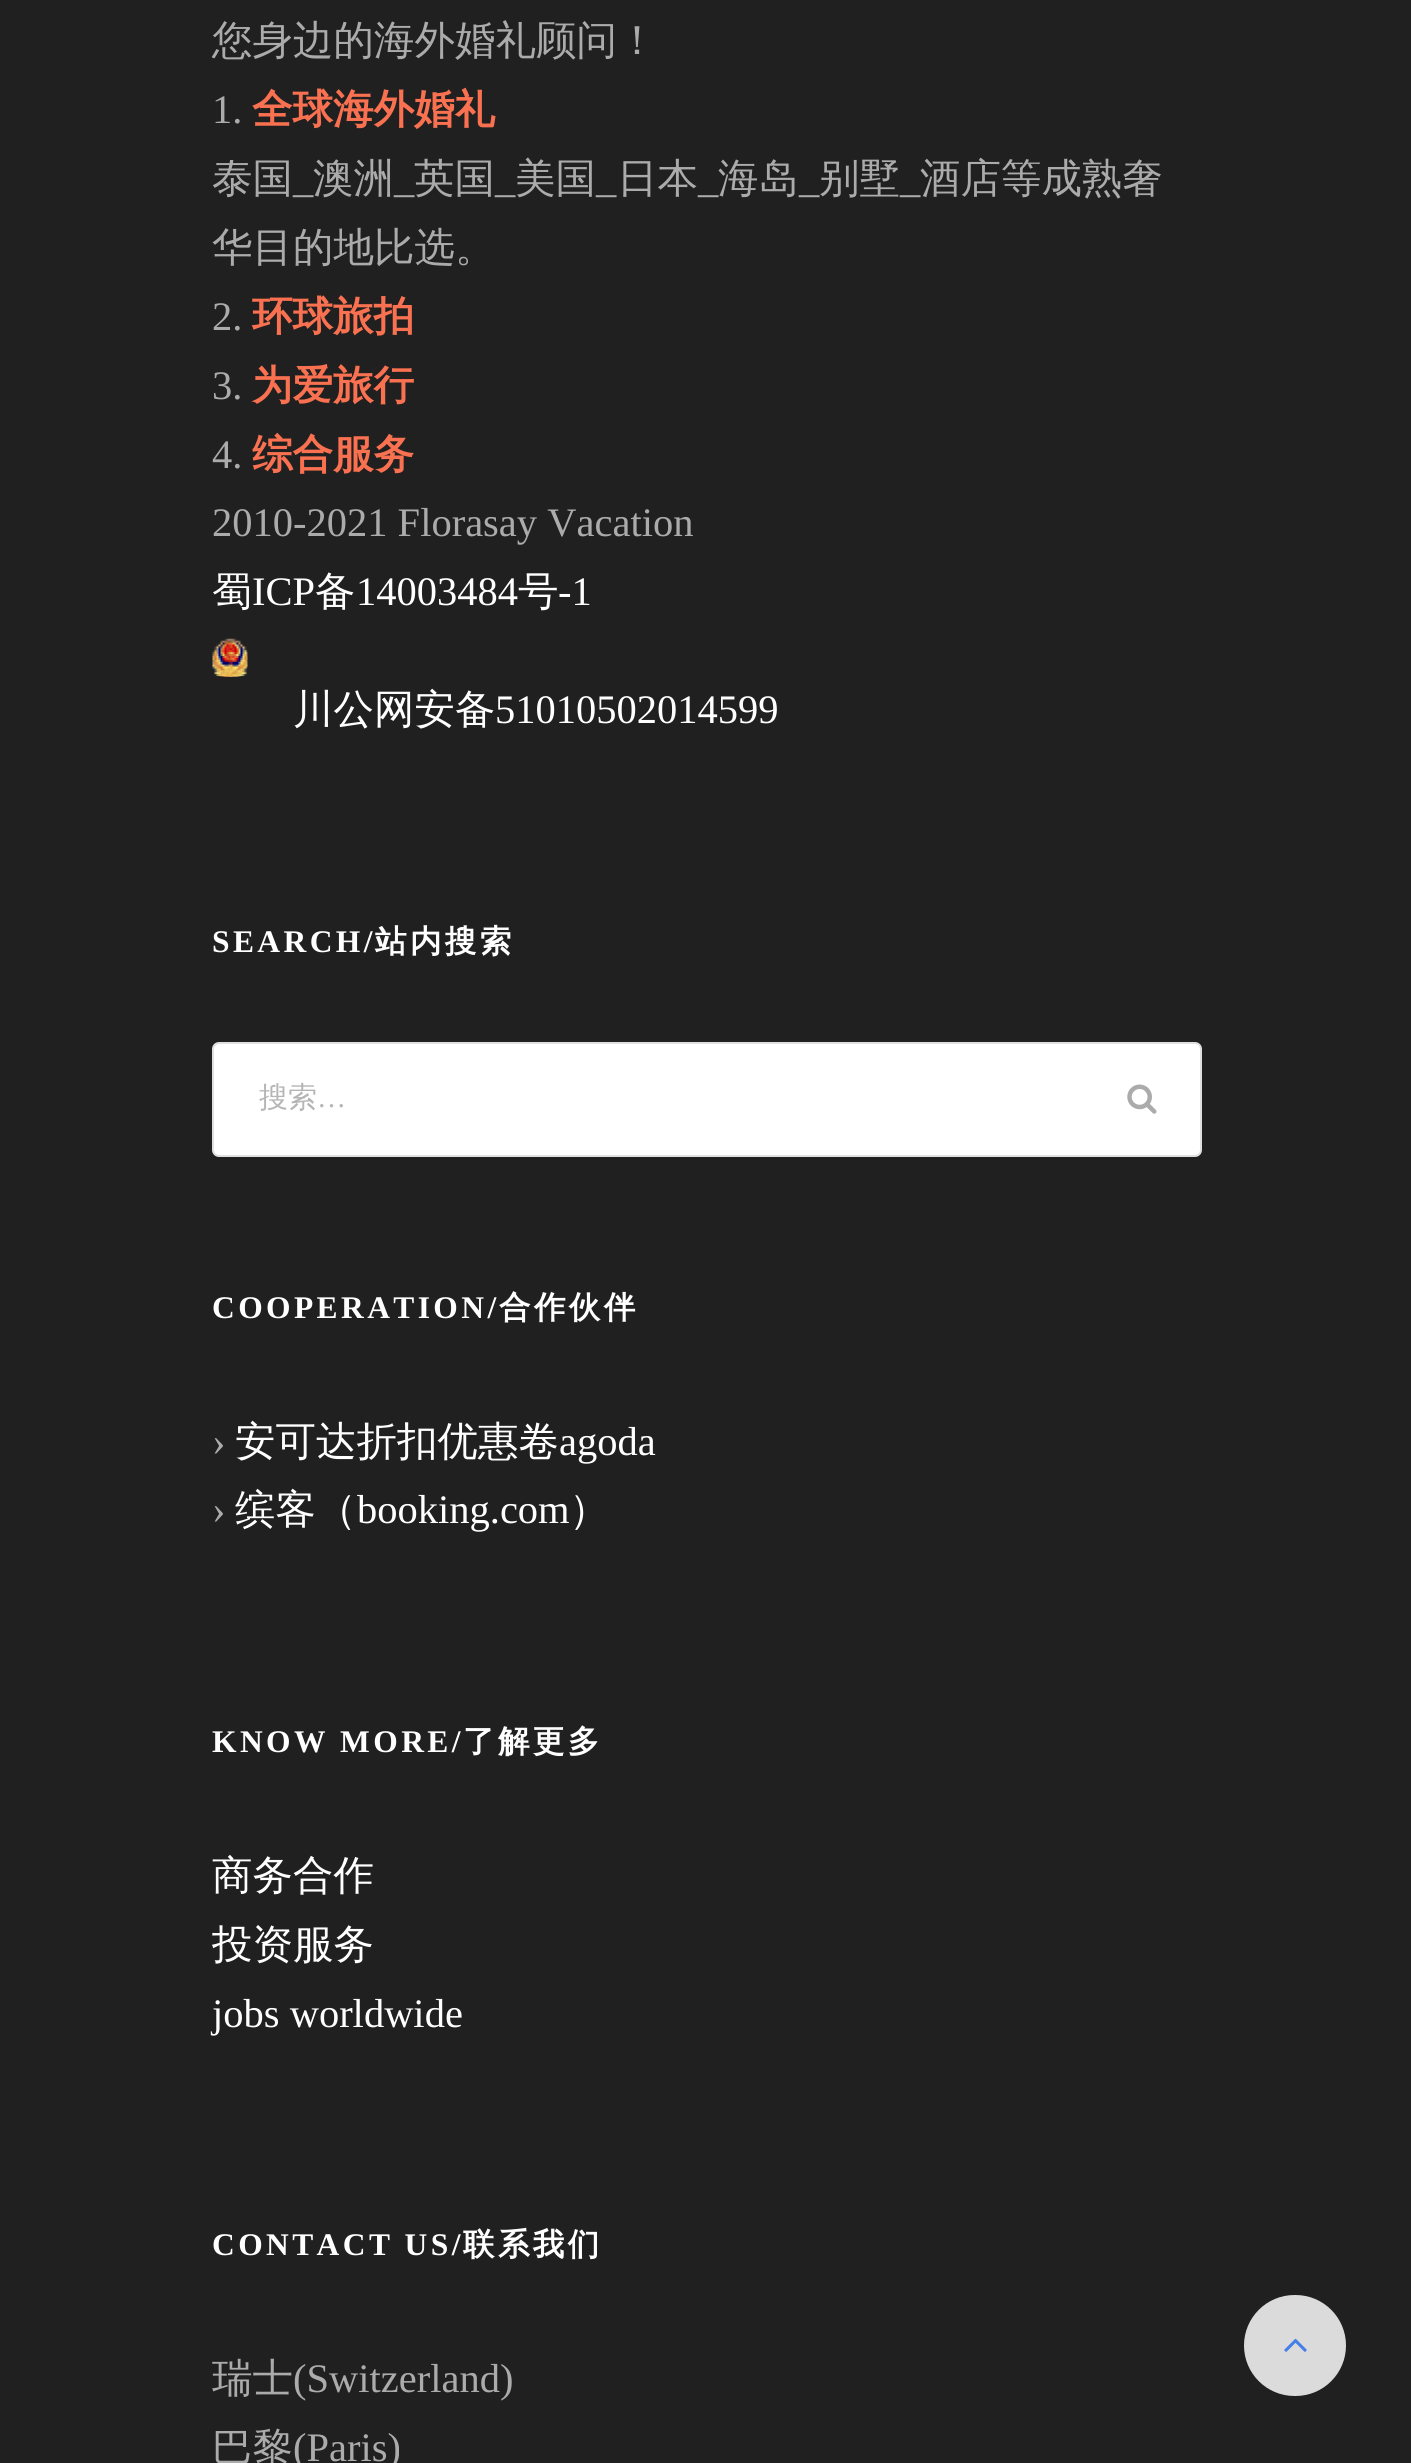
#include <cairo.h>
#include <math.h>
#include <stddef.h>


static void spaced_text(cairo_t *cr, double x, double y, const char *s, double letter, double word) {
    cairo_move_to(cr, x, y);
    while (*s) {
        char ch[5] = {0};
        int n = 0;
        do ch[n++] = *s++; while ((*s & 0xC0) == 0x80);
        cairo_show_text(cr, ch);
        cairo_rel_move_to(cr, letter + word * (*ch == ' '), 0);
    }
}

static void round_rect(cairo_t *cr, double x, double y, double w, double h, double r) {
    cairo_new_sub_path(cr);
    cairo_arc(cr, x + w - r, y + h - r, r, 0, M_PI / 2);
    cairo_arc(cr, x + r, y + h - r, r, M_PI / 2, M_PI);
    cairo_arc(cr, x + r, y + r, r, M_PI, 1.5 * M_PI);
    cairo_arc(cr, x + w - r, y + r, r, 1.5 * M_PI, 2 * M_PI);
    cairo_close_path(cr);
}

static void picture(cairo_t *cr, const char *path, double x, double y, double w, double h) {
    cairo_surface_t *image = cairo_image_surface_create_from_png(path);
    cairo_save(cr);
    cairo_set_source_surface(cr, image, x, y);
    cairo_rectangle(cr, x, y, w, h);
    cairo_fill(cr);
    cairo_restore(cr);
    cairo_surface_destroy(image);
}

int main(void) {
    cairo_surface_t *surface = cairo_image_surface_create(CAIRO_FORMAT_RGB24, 1411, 2463);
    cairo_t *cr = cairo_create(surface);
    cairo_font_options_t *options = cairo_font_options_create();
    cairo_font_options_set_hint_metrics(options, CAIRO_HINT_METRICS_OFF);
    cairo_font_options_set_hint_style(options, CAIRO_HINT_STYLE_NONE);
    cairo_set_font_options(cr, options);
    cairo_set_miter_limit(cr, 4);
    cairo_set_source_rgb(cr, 0.125, 0.125, 0.125);
    cairo_paint(cr);
    cairo_select_font_face(cr, "WenQuanYi Zen Hei Medium", CAIRO_FONT_SLANT_NORMAL, CAIRO_FONT_WEIGHT_NORMAL);
    cairo_set_font_size(cr, 40.5);
    cairo_set_source_rgb(cr, 0.671, 0.671, 0.671);
    cairo_move_to(cr, 212, 54);
    cairo_show_text(cr, "您身边的海外婚礼顾问！");
    cairo_select_font_face(cr, "Liberation Serif", CAIRO_FONT_SLANT_NORMAL, CAIRO_FONT_WEIGHT_NORMAL);
    cairo_move_to(cr, 212, 123);
    cairo_show_text(cr, "1.");
    cairo_select_font_face(cr, "WenQuanYi Zen Hei", CAIRO_FONT_SLANT_NORMAL, CAIRO_FONT_WEIGHT_BOLD);
    cairo_set_source_rgb(cr, 0.976, 0.443, 0.314);
    cairo_move_to(cr, 252, 123);
    cairo_show_text(cr, "全球海外婚礼");
    cairo_select_font_face(cr, "WenQuanYi Zen Hei Medium", CAIRO_FONT_SLANT_NORMAL, CAIRO_FONT_WEIGHT_NORMAL);
    cairo_set_source_rgb(cr, 0.671, 0.671, 0.671);
    cairo_move_to(cr, 212, 192);
    cairo_show_text(cr, "泰国");
    cairo_select_font_face(cr, "Liberation Serif", CAIRO_FONT_SLANT_NORMAL, CAIRO_FONT_WEIGHT_NORMAL);
    cairo_move_to(cr, 293, 192);
    cairo_show_text(cr, "_");
    cairo_select_font_face(cr, "WenQuanYi Zen Hei Medium", CAIRO_FONT_SLANT_NORMAL, CAIRO_FONT_WEIGHT_NORMAL);
    cairo_move_to(cr, 313, 192);
    cairo_show_text(cr, "澳洲");
    cairo_select_font_face(cr, "Liberation Serif", CAIRO_FONT_SLANT_NORMAL, CAIRO_FONT_WEIGHT_NORMAL);
    cairo_move_to(cr, 394, 192);
    cairo_show_text(cr, "_");
    cairo_select_font_face(cr, "WenQuanYi Zen Hei Medium", CAIRO_FONT_SLANT_NORMAL, CAIRO_FONT_WEIGHT_NORMAL);
    cairo_move_to(cr, 414, 192);
    cairo_show_text(cr, "英国");
    cairo_select_font_face(cr, "Liberation Serif", CAIRO_FONT_SLANT_NORMAL, CAIRO_FONT_WEIGHT_NORMAL);
    cairo_move_to(cr, 495, 192);
    cairo_show_text(cr, "_");
    cairo_select_font_face(cr, "WenQuanYi Zen Hei Medium", CAIRO_FONT_SLANT_NORMAL, CAIRO_FONT_WEIGHT_NORMAL);
    cairo_move_to(cr, 515, 192);
    cairo_show_text(cr, "美国");
    cairo_select_font_face(cr, "Liberation Serif", CAIRO_FONT_SLANT_NORMAL, CAIRO_FONT_WEIGHT_NORMAL);
    cairo_move_to(cr, 596, 192);
    cairo_show_text(cr, "_");
    cairo_select_font_face(cr, "WenQuanYi Zen Hei Medium", CAIRO_FONT_SLANT_NORMAL, CAIRO_FONT_WEIGHT_NORMAL);
    cairo_move_to(cr, 617, 192);
    cairo_show_text(cr, "日本");
    cairo_select_font_face(cr, "Liberation Serif", CAIRO_FONT_SLANT_NORMAL, CAIRO_FONT_WEIGHT_NORMAL);
    cairo_move_to(cr, 698, 192);
    cairo_show_text(cr, "_");
    cairo_select_font_face(cr, "WenQuanYi Zen Hei Medium", CAIRO_FONT_SLANT_NORMAL, CAIRO_FONT_WEIGHT_NORMAL);
    cairo_move_to(cr, 718, 192);
    cairo_show_text(cr, "海岛");
    cairo_select_font_face(cr, "Liberation Serif", CAIRO_FONT_SLANT_NORMAL, CAIRO_FONT_WEIGHT_NORMAL);
    cairo_move_to(cr, 799, 192);
    cairo_show_text(cr, "_");
    cairo_select_font_face(cr, "WenQuanYi Zen Hei Medium", CAIRO_FONT_SLANT_NORMAL, CAIRO_FONT_WEIGHT_NORMAL);
    cairo_move_to(cr, 819, 192);
    cairo_show_text(cr, "别墅");
    cairo_select_font_face(cr, "Liberation Serif", CAIRO_FONT_SLANT_NORMAL, CAIRO_FONT_WEIGHT_NORMAL);
    cairo_move_to(cr, 900, 192);
    cairo_show_text(cr, "_");
    cairo_select_font_face(cr, "WenQuanYi Zen Hei Medium", CAIRO_FONT_SLANT_NORMAL, CAIRO_FONT_WEIGHT_NORMAL);
    cairo_move_to(cr, 920, 192);
    cairo_show_text(cr, "酒店等成熟奢");
    cairo_move_to(cr, 212, 261);
    cairo_show_text(cr, "华目的地比选。");
    cairo_select_font_face(cr, "Liberation Serif", CAIRO_FONT_SLANT_NORMAL, CAIRO_FONT_WEIGHT_NORMAL);
    cairo_move_to(cr, 212, 330);
    cairo_show_text(cr, "2.");
    cairo_select_font_face(cr, "WenQuanYi Zen Hei", CAIRO_FONT_SLANT_NORMAL, CAIRO_FONT_WEIGHT_BOLD);
    cairo_set_source_rgb(cr, 0.976, 0.443, 0.314);
    cairo_move_to(cr, 252, 330);
    cairo_show_text(cr, "环球旅拍");
    cairo_select_font_face(cr, "Liberation Serif", CAIRO_FONT_SLANT_NORMAL, CAIRO_FONT_WEIGHT_NORMAL);
    cairo_set_source_rgb(cr, 0.671, 0.671, 0.671);
    cairo_move_to(cr, 212, 399);
    cairo_show_text(cr, "3.");
    cairo_select_font_face(cr, "WenQuanYi Zen Hei", CAIRO_FONT_SLANT_NORMAL, CAIRO_FONT_WEIGHT_BOLD);
    cairo_set_source_rgb(cr, 0.976, 0.443, 0.314);
    cairo_move_to(cr, 252, 399);
    cairo_show_text(cr, "为爱旅行");
    cairo_select_font_face(cr, "Liberation Serif", CAIRO_FONT_SLANT_NORMAL, CAIRO_FONT_WEIGHT_NORMAL);
    cairo_set_source_rgb(cr, 0.671, 0.671, 0.671);
    cairo_move_to(cr, 212, 468);
    cairo_show_text(cr, "4.");
    cairo_select_font_face(cr, "WenQuanYi Zen Hei", CAIRO_FONT_SLANT_NORMAL, CAIRO_FONT_WEIGHT_BOLD);
    cairo_set_source_rgb(cr, 0.976, 0.443, 0.314);
    cairo_move_to(cr, 252, 468);
    cairo_show_text(cr, "综合服务");
    cairo_select_font_face(cr, "Liberation Serif", CAIRO_FONT_SLANT_NORMAL, CAIRO_FONT_WEIGHT_NORMAL);
    cairo_set_source_rgb(cr, 0.671, 0.671, 0.671);
    cairo_move_to(cr, 212, 536);
    cairo_show_text(cr, "2010-2021 Florasay Vacation");
    cairo_select_font_face(cr, "WenQuanYi Zen Hei Medium", CAIRO_FONT_SLANT_NORMAL, CAIRO_FONT_WEIGHT_NORMAL);
    cairo_set_source_rgb(cr, 1, 1, 1);
    cairo_move_to(cr, 212, 605);
    cairo_show_text(cr, "蜀");
    cairo_select_font_face(cr, "Liberation Serif", CAIRO_FONT_SLANT_NORMAL, CAIRO_FONT_WEIGHT_NORMAL);
    cairo_move_to(cr, 252, 605);
    cairo_show_text(cr, "ICP");
    cairo_select_font_face(cr, "WenQuanYi Zen Hei Medium", CAIRO_FONT_SLANT_NORMAL, CAIRO_FONT_WEIGHT_NORMAL);
    cairo_move_to(cr, 315, 605);
    cairo_show_text(cr, "备");
    cairo_select_font_face(cr, "Liberation Serif", CAIRO_FONT_SLANT_NORMAL, CAIRO_FONT_WEIGHT_NORMAL);
    cairo_move_to(cr, 356, 605);
    cairo_show_text(cr, "14003484");
    cairo_select_font_face(cr, "WenQuanYi Zen Hei Medium", CAIRO_FONT_SLANT_NORMAL, CAIRO_FONT_WEIGHT_NORMAL);
    cairo_move_to(cr, 518, 605);
    cairo_show_text(cr, "号");
    cairo_select_font_face(cr, "Liberation Serif", CAIRO_FONT_SLANT_NORMAL, CAIRO_FONT_WEIGHT_NORMAL);
    cairo_move_to(cr, 558, 605);
    cairo_show_text(cr, "-1");
    picture(cr, "img1.png", 212, 638, 36, 39);
    cairo_select_font_face(cr, "WenQuanYi Zen Hei Medium", CAIRO_FONT_SLANT_NORMAL, CAIRO_FONT_WEIGHT_NORMAL);
    cairo_move_to(cr, 293, 723);
    cairo_show_text(cr, "川公网安备");
    cairo_select_font_face(cr, "Liberation Serif", CAIRO_FONT_SLANT_NORMAL, CAIRO_FONT_WEIGHT_NORMAL);
    cairo_move_to(cr, 495, 723);
    cairo_show_text(cr, "51010502014599");
    cairo_select_font_face(cr, "Liberation Serif", CAIRO_FONT_SLANT_NORMAL, CAIRO_FONT_WEIGHT_BOLD);
    cairo_set_font_size(cr, 31.5);
    spaced_text(cr, 212, 952, "SEARCH/", 3.4, 0);
    cairo_select_font_face(cr, "WenQuanYi Zen Hei", CAIRO_FONT_SLANT_NORMAL, CAIRO_FONT_WEIGHT_BOLD);
    spaced_text(cr, 375, 952, "站内搜索", 3.4, 0);
    round_rect(cr, 213, 1043, 988, 113, 6);
    cairo_fill_preserve(cr);
    cairo_set_source_rgb(cr, 0.878, 0.878, 0.878);
    cairo_stroke(cr);
    cairo_select_font_face(cr, "WenQuanYi Zen Hei Medium", CAIRO_FONT_SLANT_NORMAL, CAIRO_FONT_WEIGHT_NORMAL);
    cairo_set_font_size(cr, 29);
    cairo_set_source_rgb(cr, 0.71, 0.71, 0.71);
    cairo_move_to(cr, 259, 1107);
    cairo_show_text(cr, "搜索");
    cairo_select_font_face(cr, "Liberation Serif", CAIRO_FONT_SLANT_NORMAL, CAIRO_FONT_WEIGHT_NORMAL);
    cairo_move_to(cr, 317, 1107);
    cairo_show_text(cr, "…");
    picture(cr, "img2.png", 1127, 1084, 30, 30);
    cairo_select_font_face(cr, "Liberation Serif", CAIRO_FONT_SLANT_NORMAL, CAIRO_FONT_WEIGHT_BOLD);
    cairo_set_font_size(cr, 31.5);
    cairo_set_source_rgb(cr, 1, 1, 1);
    spaced_text(cr, 212, 1318, "COOPERATION/", 3.4, 0);
    cairo_select_font_face(cr, "WenQuanYi Zen Hei", CAIRO_FONT_SLANT_NORMAL, CAIRO_FONT_WEIGHT_BOLD);
    spaced_text(cr, 499, 1318, "合作伙伴", 3.4, 0);
    cairo_select_font_face(cr, "Liberation Serif", CAIRO_FONT_SLANT_NORMAL, CAIRO_FONT_WEIGHT_NORMAL);
    cairo_set_font_size(cr, 40.5);
    cairo_set_source_rgb(cr, 0.671, 0.671, 0.671);
    cairo_move_to(cr, 212, 1455);
    cairo_show_text(cr, "›");
    cairo_select_font_face(cr, "WenQuanYi Zen Hei Medium", CAIRO_FONT_SLANT_NORMAL, CAIRO_FONT_WEIGHT_NORMAL);
    cairo_set_source_rgb(cr, 1, 1, 1);
    cairo_move_to(cr, 235, 1455);
    cairo_show_text(cr, "安可达折扣优惠卷");
    cairo_select_font_face(cr, "Liberation Serif", CAIRO_FONT_SLANT_NORMAL, CAIRO_FONT_WEIGHT_NORMAL);
    cairo_move_to(cr, 559, 1455);
    cairo_show_text(cr, "agoda");
    cairo_set_source_rgb(cr, 0.671, 0.671, 0.671);
    cairo_move_to(cr, 212, 1523);
    cairo_show_text(cr, "›");
    cairo_select_font_face(cr, "WenQuanYi Zen Hei Medium", CAIRO_FONT_SLANT_NORMAL, CAIRO_FONT_WEIGHT_NORMAL);
    cairo_set_source_rgb(cr, 1, 1, 1);
    cairo_move_to(cr, 235, 1523);
    cairo_show_text(cr, "缤客（");
    cairo_select_font_face(cr, "Liberation Serif", CAIRO_FONT_SLANT_NORMAL, CAIRO_FONT_WEIGHT_NORMAL);
    cairo_move_to(cr, 357, 1523);
    cairo_show_text(cr, "booking.com");
    cairo_select_font_face(cr, "WenQuanYi Zen Hei Medium", CAIRO_FONT_SLANT_NORMAL, CAIRO_FONT_WEIGHT_NORMAL);
    cairo_move_to(cr, 569, 1523);
    cairo_show_text(cr, "）");
    cairo_select_font_face(cr, "Liberation Serif", CAIRO_FONT_SLANT_NORMAL, CAIRO_FONT_WEIGHT_BOLD);
    cairo_set_font_size(cr, 31.5);
    spaced_text(cr, 212, 1752, "KNOW MORE/", 3.4, 0);
    cairo_select_font_face(cr, "WenQuanYi Zen Hei", CAIRO_FONT_SLANT_NORMAL, CAIRO_FONT_WEIGHT_BOLD);
    spaced_text(cr, 463, 1752, "了解更多", 3.4, 0);
    cairo_select_font_face(cr, "WenQuanYi Zen Hei Medium", CAIRO_FONT_SLANT_NORMAL, CAIRO_FONT_WEIGHT_NORMAL);
    cairo_set_font_size(cr, 40.5);
    cairo_move_to(cr, 212, 1889);
    cairo_show_text(cr, "商务合作");
    cairo_move_to(cr, 212, 1958);
    cairo_show_text(cr, "投资服务");
    cairo_select_font_face(cr, "Liberation Serif", CAIRO_FONT_SLANT_NORMAL, CAIRO_FONT_WEIGHT_NORMAL);
    cairo_move_to(cr, 212, 2027);
    cairo_show_text(cr, "jobs worldwide");
    cairo_select_font_face(cr, "Liberation Serif", CAIRO_FONT_SLANT_NORMAL, CAIRO_FONT_WEIGHT_BOLD);
    cairo_set_font_size(cr, 31.5);
    spaced_text(cr, 212, 2255, "CONTACT US/", 3.4, 0);
    cairo_select_font_face(cr, "WenQuanYi Zen Hei", CAIRO_FONT_SLANT_NORMAL, CAIRO_FONT_WEIGHT_BOLD);
    spaced_text(cr, 463, 2255, "联系我们", 3.4, 0);
    cairo_select_font_face(cr, "WenQuanYi Zen Hei Medium", CAIRO_FONT_SLANT_NORMAL, CAIRO_FONT_WEIGHT_NORMAL);
    cairo_set_font_size(cr, 40.5);
    cairo_set_source_rgb(cr, 0.671, 0.671, 0.671);
    cairo_move_to(cr, 212, 2392);
    cairo_show_text(cr, "瑞士");
    cairo_select_font_face(cr, "Liberation Serif", CAIRO_FONT_SLANT_NORMAL, CAIRO_FONT_WEIGHT_NORMAL);
    cairo_move_to(cr, 293, 2392);
    cairo_show_text(cr, "(Switzerland)");
    cairo_select_font_face(cr, "WenQuanYi Zen Hei Medium", CAIRO_FONT_SLANT_NORMAL, CAIRO_FONT_WEIGHT_NORMAL);
    cairo_move_to(cr, 212, 2461);
    cairo_show_text(cr, "巴黎");
    cairo_select_font_face(cr, "Liberation Serif", CAIRO_FONT_SLANT_NORMAL, CAIRO_FONT_WEIGHT_NORMAL);
    cairo_move_to(cr, 293, 2461);
    cairo_show_text(cr, "(Paris)");
    cairo_set_source_rgb(cr, 0.859, 0.859, 0.859);
    round_rect(cr, 1244, 2295, 102, 101, 50.5);
    cairo_fill(cr);
    picture(cr, "img3.png", 1284, 2338, 23, 14);
    cairo_surface_write_to_png(surface, "page.png");
    cairo_font_options_destroy(options);
    cairo_destroy(cr);
    cairo_surface_destroy(surface);
    return 0;
}
